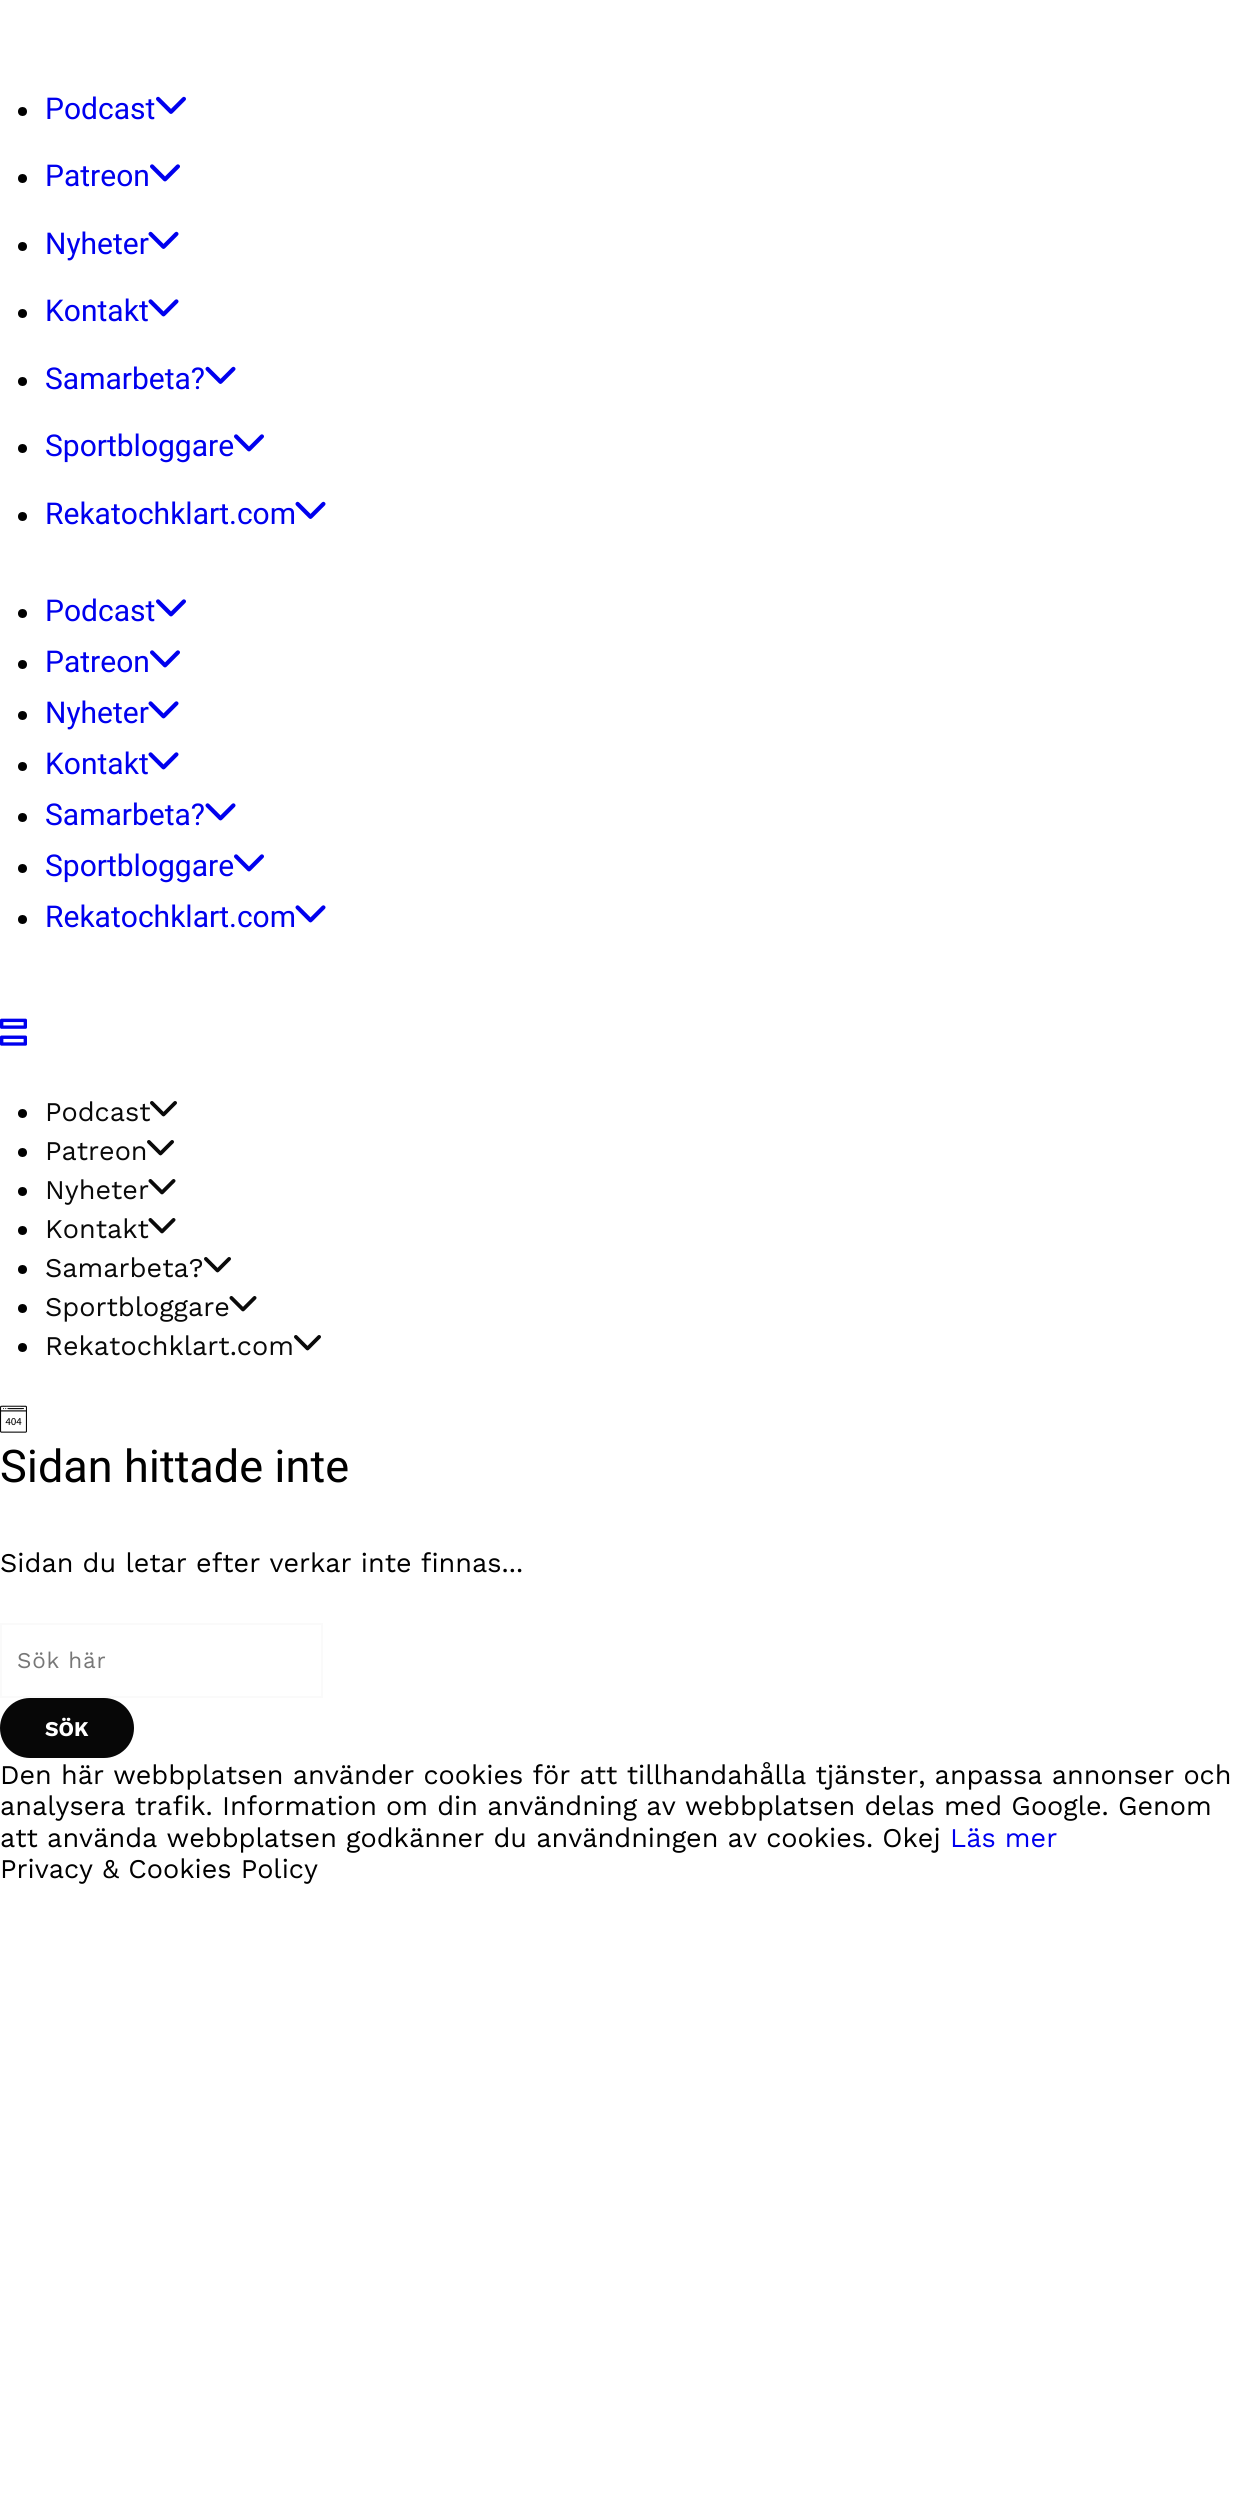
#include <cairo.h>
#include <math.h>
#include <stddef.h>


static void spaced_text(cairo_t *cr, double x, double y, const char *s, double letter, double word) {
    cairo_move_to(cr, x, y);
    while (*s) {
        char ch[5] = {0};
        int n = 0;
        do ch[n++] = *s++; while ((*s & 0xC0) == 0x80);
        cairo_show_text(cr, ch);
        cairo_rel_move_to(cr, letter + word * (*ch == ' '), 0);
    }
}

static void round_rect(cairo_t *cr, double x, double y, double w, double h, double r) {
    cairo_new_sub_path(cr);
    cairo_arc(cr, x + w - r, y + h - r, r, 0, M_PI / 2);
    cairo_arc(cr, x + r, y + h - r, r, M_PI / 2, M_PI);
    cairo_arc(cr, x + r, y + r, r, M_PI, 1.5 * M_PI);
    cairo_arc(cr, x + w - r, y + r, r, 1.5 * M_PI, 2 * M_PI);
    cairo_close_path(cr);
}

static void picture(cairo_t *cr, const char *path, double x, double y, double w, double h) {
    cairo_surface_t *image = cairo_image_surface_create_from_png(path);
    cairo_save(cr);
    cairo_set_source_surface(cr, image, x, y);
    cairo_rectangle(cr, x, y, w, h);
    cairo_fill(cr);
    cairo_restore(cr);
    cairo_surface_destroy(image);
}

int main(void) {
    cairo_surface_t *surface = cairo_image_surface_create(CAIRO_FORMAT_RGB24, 1252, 2504);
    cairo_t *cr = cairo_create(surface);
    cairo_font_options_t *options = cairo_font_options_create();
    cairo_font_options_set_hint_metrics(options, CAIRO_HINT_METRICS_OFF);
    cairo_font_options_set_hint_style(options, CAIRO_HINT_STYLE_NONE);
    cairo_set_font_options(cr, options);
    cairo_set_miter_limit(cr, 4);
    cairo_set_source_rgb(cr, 1, 1, 1);
    cairo_paint(cr);
    cairo_set_source_rgb(cr, 0, 0, 0);
    cairo_arc(cr, 22.5, 111.5, 4.5, 0, 2 * M_PI);
    cairo_fill(cr);
    cairo_select_font_face(cr, "Heebo", CAIRO_FONT_SLANT_NORMAL, CAIRO_FONT_WEIGHT_NORMAL);
    cairo_set_font_size(cr, 30);
    cairo_set_source_rgb(cr, 0, 0, 0.933);
    cairo_move_to(cr, 45, 119);
    cairo_show_text(cr, "Podcast");
    picture(cr, "img1.png", 156, 96, 30, 18);
    cairo_set_source_rgb(cr, 0, 0, 0);
    cairo_arc(cr, 22.5, 178.5, 4.5, 0, 2 * M_PI);
    cairo_fill(cr);
    cairo_set_source_rgb(cr, 0, 0, 0.933);
    cairo_move_to(cr, 45, 186);
    cairo_show_text(cr, "Patreon");
    picture(cr, "img2.png", 150, 164, 30, 18);
    cairo_set_source_rgb(cr, 0, 0, 0);
    cairo_arc(cr, 22.5, 246.5, 4.5, 0, 2 * M_PI);
    cairo_fill(cr);
    cairo_set_source_rgb(cr, 0, 0, 0.933);
    cairo_move_to(cr, 45, 254);
    cairo_show_text(cr, "Nyheter");
    picture(cr, "img3.png", 148, 231, 31, 18);
    cairo_set_source_rgb(cr, 0, 0, 0);
    cairo_arc(cr, 22.5, 313.5, 4.5, 0, 2 * M_PI);
    cairo_fill(cr);
    cairo_set_source_rgb(cr, 0, 0, 0.933);
    cairo_move_to(cr, 45, 321);
    cairo_show_text(cr, "Kontakt");
    picture(cr, "img4.png", 148, 299, 31, 18);
    cairo_set_source_rgb(cr, 0, 0, 0);
    cairo_arc(cr, 22.5, 381.5, 4.5, 0, 2 * M_PI);
    cairo_fill(cr);
    cairo_set_source_rgb(cr, 0, 0, 0.933);
    cairo_move_to(cr, 45, 389);
    cairo_show_text(cr, "Samarbeta?");
    picture(cr, "img5.png", 205, 366, 31, 18);
    cairo_set_source_rgb(cr, 0, 0, 0);
    cairo_arc(cr, 22.5, 448.5, 4.5, 0, 2 * M_PI);
    cairo_fill(cr);
    cairo_set_source_rgb(cr, 0, 0, 0.933);
    cairo_move_to(cr, 45, 456);
    cairo_show_text(cr, "Sportbloggare");
    picture(cr, "img2.png", 234, 434, 30, 18);
    cairo_set_source_rgb(cr, 0, 0, 0);
    cairo_arc(cr, 22.5, 516.5, 4.5, 0, 2 * M_PI);
    cairo_fill(cr);
    cairo_set_source_rgb(cr, 0, 0, 0.933);
    cairo_move_to(cr, 45, 524);
    cairo_show_text(cr, "Rekatochklart.com");
    picture(cr, "img5.png", 295, 501, 31, 18);
    cairo_set_source_rgb(cr, 0, 0, 0);
    cairo_arc(cr, 22.5, 613.5, 4.5, 0, 2 * M_PI);
    cairo_fill(cr);
    cairo_set_source_rgb(cr, 0, 0, 0.933);
    cairo_move_to(cr, 45, 621);
    cairo_show_text(cr, "Podcast");
    picture(cr, "img2.png", 156, 599, 30, 18);
    cairo_set_source_rgb(cr, 0, 0, 0);
    cairo_arc(cr, 22.5, 664.5, 4.5, 0, 2 * M_PI);
    cairo_fill(cr);
    cairo_set_source_rgb(cr, 0, 0, 0.933);
    cairo_move_to(cr, 45, 672);
    cairo_show_text(cr, "Patreon");
    picture(cr, "img2.png", 150, 650, 30, 18);
    cairo_set_source_rgb(cr, 0, 0, 0);
    cairo_arc(cr, 22.5, 715.5, 4.5, 0, 2 * M_PI);
    cairo_fill(cr);
    cairo_set_source_rgb(cr, 0, 0, 0.933);
    cairo_move_to(cr, 45, 723);
    cairo_show_text(cr, "Nyheter");
    picture(cr, "img6.png", 148, 701, 31, 18);
    cairo_set_source_rgb(cr, 0, 0, 0);
    cairo_arc(cr, 22.5, 766.5, 4.5, 0, 2 * M_PI);
    cairo_fill(cr);
    cairo_set_source_rgb(cr, 0, 0, 0.933);
    cairo_move_to(cr, 45, 774);
    cairo_show_text(cr, "Kontakt");
    picture(cr, "img4.png", 148, 752, 31, 18);
    cairo_set_source_rgb(cr, 0, 0, 0);
    cairo_arc(cr, 22.5, 817.5, 4.5, 0, 2 * M_PI);
    cairo_fill(cr);
    cairo_set_source_rgb(cr, 0, 0, 0.933);
    cairo_move_to(cr, 45, 825);
    cairo_show_text(cr, "Samarbeta?");
    picture(cr, "img4.png", 205, 803, 31, 18);
    cairo_set_source_rgb(cr, 0, 0, 0);
    cairo_arc(cr, 22.5, 868.5, 4.5, 0, 2 * M_PI);
    cairo_fill(cr);
    cairo_set_source_rgb(cr, 0, 0, 0.933);
    cairo_move_to(cr, 45, 876);
    cairo_show_text(cr, "Sportbloggare");
    picture(cr, "img2.png", 234, 854, 30, 18);
    cairo_set_source_rgb(cr, 0, 0, 0);
    cairo_arc(cr, 22.5, 919.5, 4.5, 0, 2 * M_PI);
    cairo_fill(cr);
    cairo_set_source_rgb(cr, 0, 0, 0.933);
    cairo_move_to(cr, 45, 927);
    cairo_show_text(cr, "Rekatochklart.com");
    picture(cr, "img4.png", 295, 905, 31, 18);
    picture(cr, "img7.png", 0, 1018, 27, 28);
    cairo_set_source_rgb(cr, 0, 0, 0);
    cairo_arc(cr, 22.5, 1113.5, 4.5, 0, 2 * M_PI);
    cairo_fill(cr);
    cairo_select_font_face(cr, "Work Sans", CAIRO_FONT_SLANT_NORMAL, CAIRO_FONT_WEIGHT_NORMAL);
    cairo_set_font_size(cr, 27);
    cairo_set_source_rgb(cr, 0.039, 0.039, 0.039);
    cairo_move_to(cr, 45, 1121);
    cairo_show_text(cr, "Podcast");
    picture(cr, "img8.png", 150, 1101, 27, 16);
    cairo_set_source_rgb(cr, 0, 0, 0);
    cairo_arc(cr, 22.5, 1152.5, 4.5, 0, 2 * M_PI);
    cairo_fill(cr);
    cairo_set_source_rgb(cr, 0.039, 0.039, 0.039);
    cairo_move_to(cr, 45, 1160);
    cairo_show_text(cr, "Patreon");
    picture(cr, "img8.png", 147, 1140, 27, 16);
    cairo_set_source_rgb(cr, 0, 0, 0);
    cairo_arc(cr, 22.5, 1191.5, 4.5, 0, 2 * M_PI);
    cairo_fill(cr);
    cairo_set_source_rgb(cr, 0.039, 0.039, 0.039);
    cairo_move_to(cr, 45, 1199);
    cairo_show_text(cr, "Nyheter");
    picture(cr, "img9.png", 148, 1179, 28, 16);
    cairo_set_source_rgb(cr, 0, 0, 0);
    cairo_arc(cr, 22.5, 1230.5, 4.5, 0, 2 * M_PI);
    cairo_fill(cr);
    cairo_set_source_rgb(cr, 0.039, 0.039, 0.039);
    cairo_move_to(cr, 45, 1238);
    cairo_show_text(cr, "Kontakt");
    picture(cr, "img10.png", 148, 1218, 28, 16);
    cairo_set_source_rgb(cr, 0, 0, 0);
    cairo_arc(cr, 22.5, 1269.5, 4.5, 0, 2 * M_PI);
    cairo_fill(cr);
    cairo_set_source_rgb(cr, 0.039, 0.039, 0.039);
    cairo_move_to(cr, 45, 1277);
    cairo_show_text(cr, "Samarbeta?");
    picture(cr, "img8.png", 204, 1257, 27, 16);
    cairo_set_source_rgb(cr, 0, 0, 0);
    cairo_arc(cr, 22.5, 1308.5, 4.5, 0, 2 * M_PI);
    cairo_fill(cr);
    cairo_set_source_rgb(cr, 0.039, 0.039, 0.039);
    cairo_move_to(cr, 45, 1316);
    cairo_show_text(cr, "Sportbloggare");
    picture(cr, "img11.png", 229, 1296, 28, 16);
    cairo_set_source_rgb(cr, 0, 0, 0);
    cairo_arc(cr, 22.5, 1347.5, 4.5, 0, 2 * M_PI);
    cairo_fill(cr);
    cairo_set_source_rgb(cr, 0.039, 0.039, 0.039);
    cairo_move_to(cr, 45, 1355);
    cairo_show_text(cr, "Rekatochklart.com");
    picture(cr, "img8.png", 294, 1335, 27, 16);
    picture(cr, "img12.png", 0, 1405, 27, 28);
    cairo_select_font_face(cr, "Heebo", CAIRO_FONT_SLANT_NORMAL, CAIRO_FONT_WEIGHT_NORMAL);
    cairo_set_font_size(cr, 45);
    cairo_set_source_rgb(cr, 0, 0, 0);
    cairo_move_to(cr, 0, 1482);
    cairo_show_text(cr, "Sidan hittade inte");
    cairo_select_font_face(cr, "Work Sans", CAIRO_FONT_SLANT_NORMAL, CAIRO_FONT_WEIGHT_NORMAL);
    cairo_set_font_size(cr, 27);
    cairo_move_to(cr, 0, 1572);
    cairo_show_text(cr, "Sidan du letar efter verkar inte finnas...");
    cairo_rectangle(cr, 1, 1624, 321, 73);
    cairo_set_source_rgb(cr, 0.98, 0.98, 0.98);
    cairo_stroke(cr);
    cairo_set_font_size(cr, 22.5);
    cairo_set_source_rgb(cr, 0.467, 0.467, 0.467);
    spaced_text(cr, 17, 1668, "Sök här", 0.75, 0);
    cairo_set_source_rgb(cr, 0.031, 0.031, 0.031);
    round_rect(cr, 0, 1698, 134, 60, 30);
    cairo_fill(cr);
    cairo_select_font_face(cr, "Work Sans", CAIRO_FONT_SLANT_NORMAL, CAIRO_FONT_WEIGHT_BOLD);
    cairo_set_font_size(cr, 21);
    cairo_set_source_rgb(cr, 1, 1, 1);
    cairo_move_to(cr, 45, 1736);
    cairo_show_text(cr, "SÖK");
    cairo_select_font_face(cr, "Work Sans", CAIRO_FONT_SLANT_NORMAL, CAIRO_FONT_WEIGHT_NORMAL);
    cairo_set_font_size(cr, 27);
    cairo_set_source_rgb(cr, 0, 0, 0);
    cairo_move_to(cr, 0, 1784);
    cairo_show_text(cr, "Den här webbplatsen använder cookies för att tillhandahålla tjänster, anpassa annonser och");
    cairo_move_to(cr, 0, 1815);
    cairo_show_text(cr, "analysera trafik. Information om din användning av webbplatsen delas med Google. Genom");
    cairo_move_to(cr, 0, 1847);
    cairo_show_text(cr, "att använda webbplatsen godkänner du användningen av cookies. Okej");
    cairo_set_source_rgb(cr, 0, 0, 0.933);
    cairo_move_to(cr, 950, 1847);
    cairo_show_text(cr, "Läs mer");
    cairo_set_source_rgb(cr, 0, 0, 0);
    cairo_move_to(cr, 0, 1878);
    cairo_show_text(cr, "Privacy & Cookies Policy");
    cairo_surface_write_to_png(surface, "page.png");
    cairo_font_options_destroy(options);
    cairo_destroy(cr);
    cairo_surface_destroy(surface);
    return 0;
}
